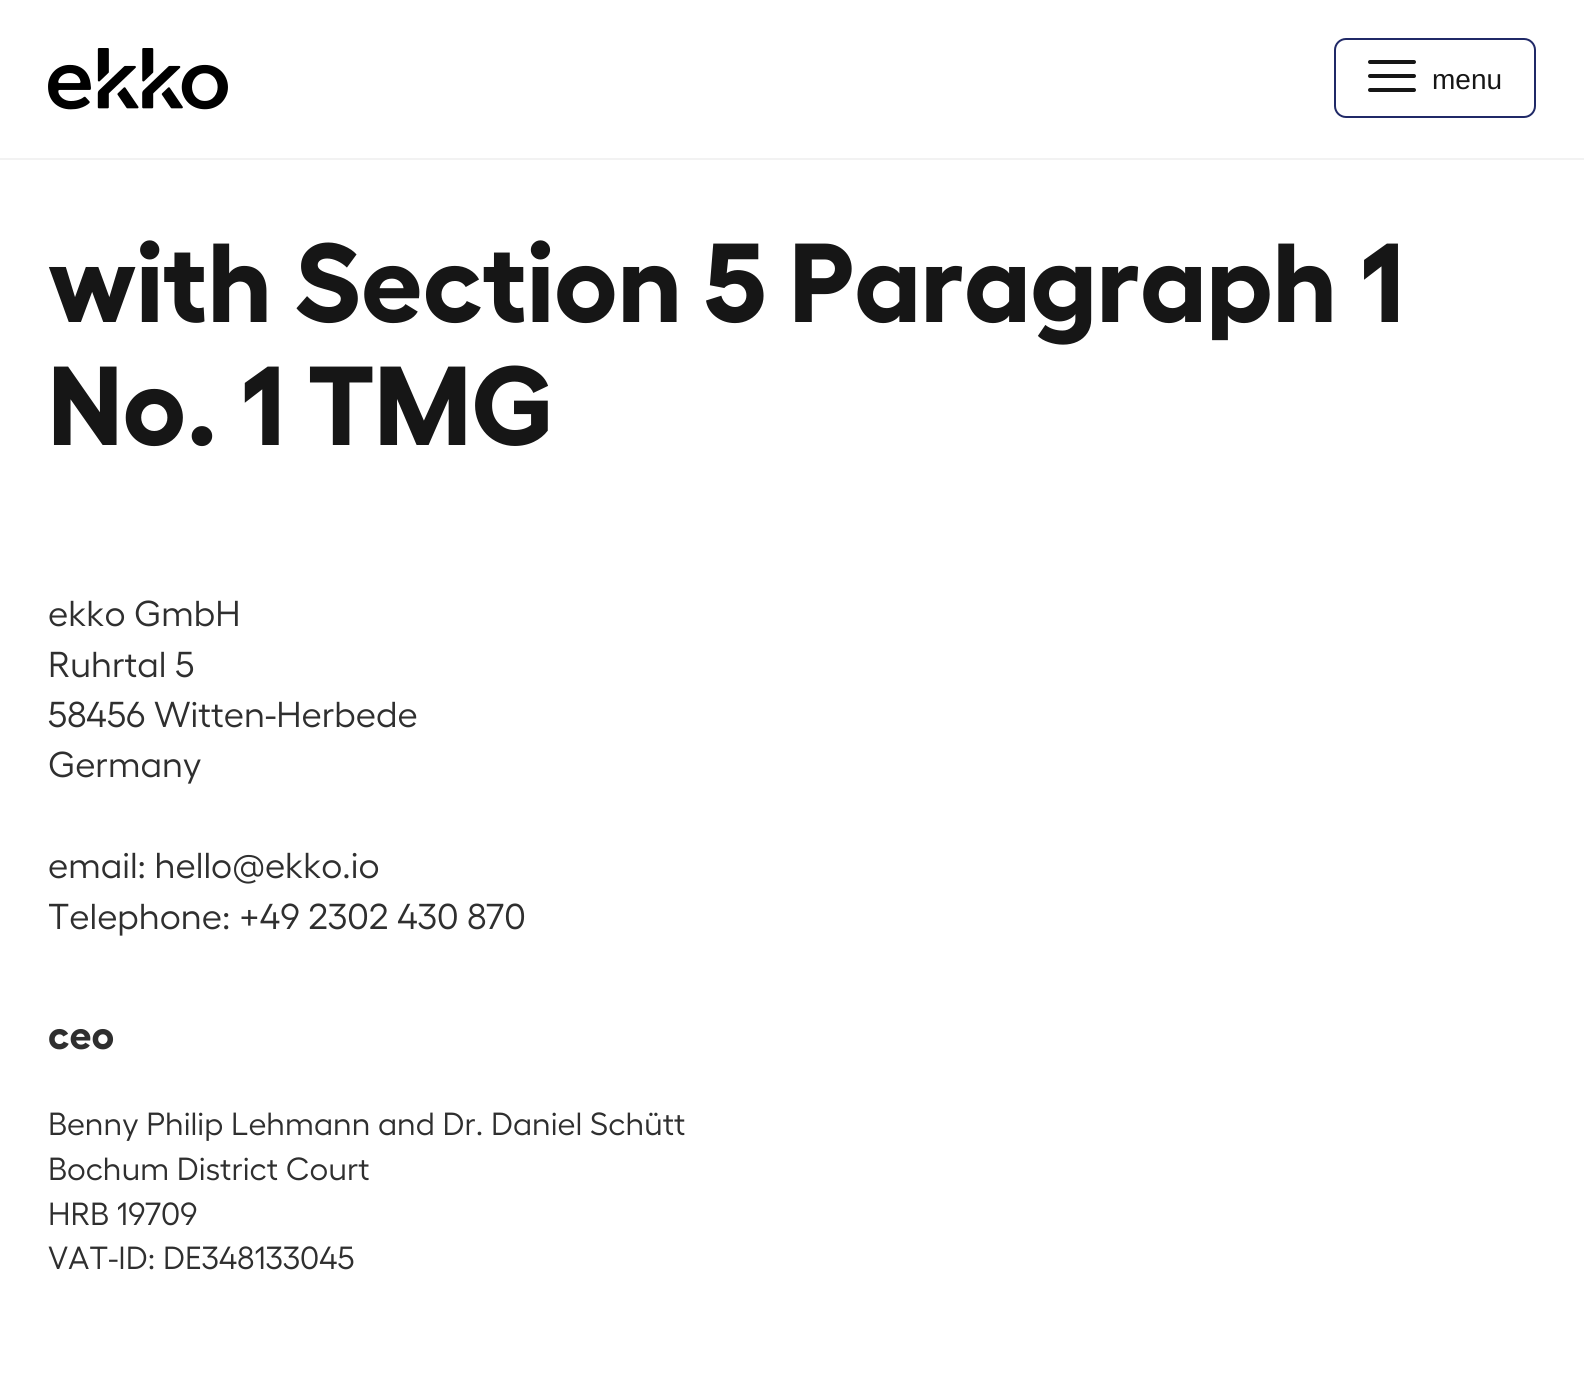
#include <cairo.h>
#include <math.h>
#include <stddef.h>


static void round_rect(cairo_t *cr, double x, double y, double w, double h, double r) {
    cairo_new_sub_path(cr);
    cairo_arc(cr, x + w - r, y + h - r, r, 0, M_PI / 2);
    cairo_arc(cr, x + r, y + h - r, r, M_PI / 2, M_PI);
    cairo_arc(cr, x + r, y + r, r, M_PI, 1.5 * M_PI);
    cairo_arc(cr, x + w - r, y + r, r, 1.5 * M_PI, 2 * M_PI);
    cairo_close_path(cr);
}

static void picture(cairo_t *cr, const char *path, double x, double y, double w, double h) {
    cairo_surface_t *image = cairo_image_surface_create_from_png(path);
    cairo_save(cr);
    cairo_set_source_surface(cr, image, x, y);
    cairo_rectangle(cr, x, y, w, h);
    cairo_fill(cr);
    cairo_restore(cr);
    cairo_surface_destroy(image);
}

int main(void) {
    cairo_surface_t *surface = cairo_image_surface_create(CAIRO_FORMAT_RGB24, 1584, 1395);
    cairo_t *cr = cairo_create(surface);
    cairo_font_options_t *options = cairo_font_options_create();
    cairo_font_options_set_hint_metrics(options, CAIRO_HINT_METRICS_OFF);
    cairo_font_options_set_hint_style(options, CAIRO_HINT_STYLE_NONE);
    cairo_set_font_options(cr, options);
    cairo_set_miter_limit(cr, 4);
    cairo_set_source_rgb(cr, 1, 1, 1);
    cairo_paint(cr);
    cairo_set_source_rgb(cr, 0.949, 0.949, 0.949);
    cairo_rectangle(cr, 0, 158, 1584, 2);
    cairo_fill(cr);
    picture(cr, "img1.png", 48, 48, 180, 62);
    round_rect(cr, 1335, 39, 200, 78, 11);
    cairo_set_source_rgb(cr, 0.125, 0.161, 0.404);
    cairo_stroke(cr);
    cairo_new_path(cr);
    cairo_move_to(cr, 1370, 76);
    cairo_line_to(cr, 1414, 76);
    cairo_move_to(cr, 1370, 62);
    cairo_line_to(cr, 1414, 62);
    cairo_move_to(cr, 1370, 90);
    cairo_line_to(cr, 1414, 90);
    cairo_set_source_rgb(cr, 0.086, 0.086, 0.086);
    cairo_set_line_width(cr, 4);
    cairo_set_line_cap(cr, CAIRO_LINE_CAP_ROUND);
    cairo_set_line_join(cr, CAIRO_LINE_JOIN_ROUND);
    cairo_stroke(cr);
    cairo_select_font_face(cr, "Liberation Sans", CAIRO_FONT_SLANT_NORMAL, CAIRO_FONT_WEIGHT_NORMAL);
    cairo_set_font_size(cr, 28);
    cairo_move_to(cr, 1432, 89);
    cairo_show_text(cr, "menu");
    cairo_select_font_face(cr, "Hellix", CAIRO_FONT_SLANT_NORMAL, CAIRO_FONT_WEIGHT_BOLD);
    cairo_set_font_size(cr, 112);
    cairo_move_to(cr, 48, 322);
    cairo_show_text(cr, "with Section 5 Paragraph 1");
    cairo_move_to(cr, 48, 445);
    cairo_show_text(cr, "No. 1 TMG");
    cairo_select_font_face(cr, "Hellix", CAIRO_FONT_SLANT_NORMAL, CAIRO_FONT_WEIGHT_NORMAL);
    cairo_set_font_size(cr, 36);
    cairo_set_source_rgb(cr, 0.184, 0.184, 0.184);
    cairo_move_to(cr, 48, 626);
    cairo_show_text(cr, "ekko GmbH");
    cairo_move_to(cr, 48, 677);
    cairo_show_text(cr, "Ruhrtal 5");
    cairo_move_to(cr, 48, 727);
    cairo_show_text(cr, "58456 Witten-Herbede");
    cairo_move_to(cr, 48, 777);
    cairo_show_text(cr, "Germany");
    cairo_move_to(cr, 48, 878);
    cairo_show_text(cr, "email: hello@ekko.io");
    cairo_move_to(cr, 48, 929);
    cairo_show_text(cr, "Telephone: +49 2302 430 870");
    cairo_select_font_face(cr, "Hellix", CAIRO_FONT_SLANT_NORMAL, CAIRO_FONT_WEIGHT_BOLD);
    cairo_set_font_size(cr, 40);
    cairo_move_to(cr, 48, 1049);
    cairo_show_text(cr, "ceo");
    cairo_select_font_face(cr, "Hellix", CAIRO_FONT_SLANT_NORMAL, CAIRO_FONT_WEIGHT_NORMAL);
    cairo_set_font_size(cr, 32);
    cairo_move_to(cr, 48, 1135);
    cairo_show_text(cr, "Benny Philip Lehmann and Dr. Daniel Schütt");
    cairo_move_to(cr, 48, 1180);
    cairo_show_text(cr, "Bochum District Court");
    cairo_move_to(cr, 48, 1225);
    cairo_show_text(cr, "HRB 19709");
    cairo_move_to(cr, 48, 1269);
    cairo_show_text(cr, "VAT-ID: DE348133045");
    cairo_surface_write_to_png(surface, "page.png");
    cairo_font_options_destroy(options);
    cairo_destroy(cr);
    cairo_surface_destroy(surface);
    return 0;
}
